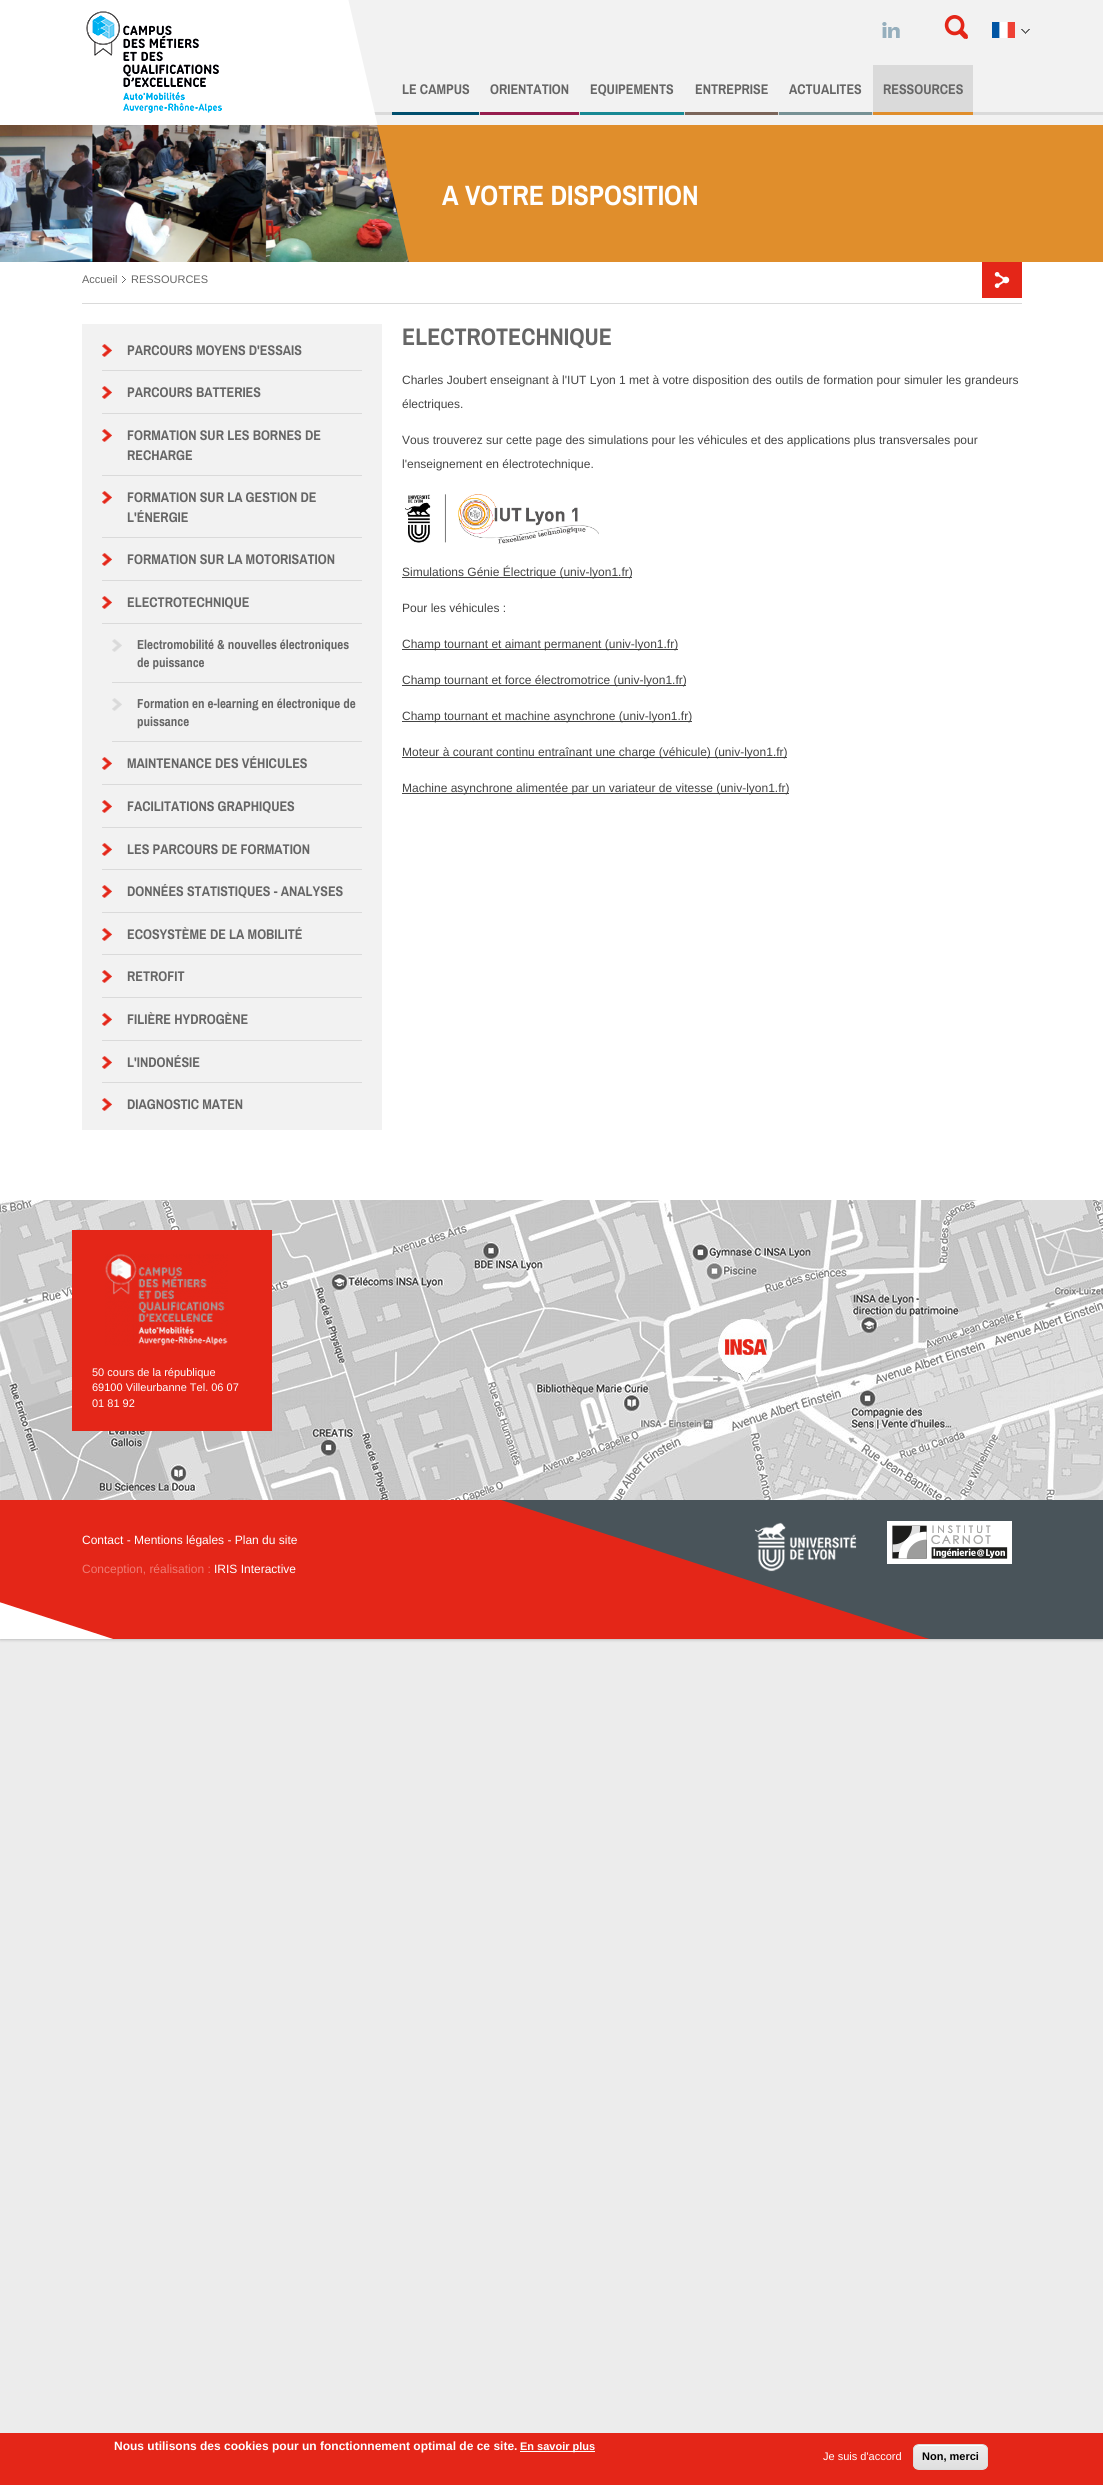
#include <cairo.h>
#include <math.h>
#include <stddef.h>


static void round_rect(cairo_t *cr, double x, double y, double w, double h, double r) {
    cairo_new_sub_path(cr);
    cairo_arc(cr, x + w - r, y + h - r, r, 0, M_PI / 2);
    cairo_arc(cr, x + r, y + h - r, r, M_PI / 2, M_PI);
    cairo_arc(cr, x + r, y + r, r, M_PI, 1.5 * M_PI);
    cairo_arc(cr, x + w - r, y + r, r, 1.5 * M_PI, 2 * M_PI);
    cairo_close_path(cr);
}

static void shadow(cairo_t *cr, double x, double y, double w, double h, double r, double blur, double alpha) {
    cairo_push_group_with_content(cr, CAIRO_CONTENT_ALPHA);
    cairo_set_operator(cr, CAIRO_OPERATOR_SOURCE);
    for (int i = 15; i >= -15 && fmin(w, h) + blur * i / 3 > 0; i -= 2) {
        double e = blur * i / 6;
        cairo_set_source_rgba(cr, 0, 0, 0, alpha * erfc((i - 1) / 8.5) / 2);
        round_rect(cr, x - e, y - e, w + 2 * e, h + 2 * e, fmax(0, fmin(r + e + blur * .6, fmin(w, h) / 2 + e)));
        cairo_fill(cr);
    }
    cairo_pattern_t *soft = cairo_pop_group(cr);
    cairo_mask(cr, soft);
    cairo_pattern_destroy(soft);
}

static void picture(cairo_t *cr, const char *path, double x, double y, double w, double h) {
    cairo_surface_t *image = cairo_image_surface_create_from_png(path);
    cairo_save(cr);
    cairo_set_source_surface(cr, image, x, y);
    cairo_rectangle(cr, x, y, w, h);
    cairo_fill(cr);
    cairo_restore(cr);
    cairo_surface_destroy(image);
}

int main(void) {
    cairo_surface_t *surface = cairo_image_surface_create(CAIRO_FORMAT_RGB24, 1103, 2485);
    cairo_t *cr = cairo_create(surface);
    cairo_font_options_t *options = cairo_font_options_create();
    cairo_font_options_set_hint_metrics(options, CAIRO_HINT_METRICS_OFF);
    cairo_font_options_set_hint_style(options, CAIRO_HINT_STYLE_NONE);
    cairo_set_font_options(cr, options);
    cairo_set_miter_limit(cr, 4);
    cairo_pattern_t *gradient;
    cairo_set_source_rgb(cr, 0.922, 0.922, 0.922);
    cairo_paint(cr);
    cairo_set_source_rgb(cr, 0, 0, 0);
    shadow(cr, 0, 0, 1103, 1639, 0, 2, 0.3);
    cairo_set_source_rgb(cr, 1, 1, 1);
    cairo_rectangle(cr, 0, 262, 1103, 938);
    cairo_fill(cr);
    cairo_set_source_rgb(cr, 0.949, 0.949, 0.949);
    cairo_rectangle(cr, 348, 0, 755, 125);
    cairo_fill(cr);
    cairo_set_source_rgb(cr, 1, 1, 1);
    cairo_rectangle(cr, 0, 0, 72, 125);
    cairo_fill(cr);
    cairo_set_source_rgb(cr, 0.855, 0.855, 0.855);
    cairo_rectangle(cr, 374, 112, 729, 3);
    cairo_fill(cr);
    cairo_save(cr);
    cairo_rectangle(cr, 0, 0, 392, 125);
    cairo_clip(cr);
    cairo_set_source_rgb(cr, 1, 1, 1);
    cairo_new_path(cr);
    cairo_move_to(cr, 269, 12);
    cairo_line_to(cr, 347, -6);
    cairo_line_to(cr, 404, 238);
    cairo_line_to(cr, 326, 256);
    cairo_close_path(cr);
    cairo_fill(cr);
    cairo_restore(cr);
    cairo_set_source_rgb(cr, 1, 1, 1);
    cairo_rectangle(cr, 72, 0, 249, 125);
    cairo_fill(cr);
    picture(cr, "img1.png", 86, 11, 136, 102);
    picture(cr, "img2.png", 882, 22, 18, 16);
    picture(cr, "img3.png", 944, 15, 24, 24);
    picture(cr, "img4.png", 992, 22, 23, 16);
    picture(cr, "img5.png", 1021, 29, 9, 5);
    cairo_set_source_rgb(cr, 0, 0.31, 0.431);
    cairo_rectangle(cr, 392, 112, 87, 3);
    cairo_fill(cr);
    cairo_select_font_face(cr, "Archivo Narrow", CAIRO_FONT_SLANT_NORMAL, CAIRO_FONT_WEIGHT_BOLD);
    cairo_set_font_size(cr, 14);
    cairo_set_source_rgb(cr, 0.4, 0.4, 0.4);
    cairo_move_to(cr, 402, 94);
    cairo_show_text(cr, "LE CAMPUS");
    cairo_set_source_rgb(cr, 0.588, 0.114, 0.306);
    cairo_rectangle(cr, 480, 112, 99, 3);
    cairo_fill(cr);
    cairo_set_source_rgb(cr, 0.4, 0.4, 0.4);
    cairo_move_to(cr, 490, 94);
    cairo_show_text(cr, "ORIENTATION");
    cairo_set_source_rgb(cr, 0.09, 0.537, 0.58);
    cairo_rectangle(cr, 580, 112, 104, 3);
    cairo_fill(cr);
    cairo_set_source_rgb(cr, 0.4, 0.4, 0.4);
    cairo_move_to(cr, 590, 94);
    cairo_show_text(cr, "EQUIPEMENTS");
    cairo_set_source_rgb(cr, 0.478, 0.396, 0.353);
    cairo_rectangle(cr, 685, 112, 93, 3);
    cairo_fill(cr);
    cairo_set_source_rgb(cr, 0.4, 0.4, 0.4);
    cairo_move_to(cr, 695, 94);
    cairo_show_text(cr, "ENTREPRISE");
    cairo_set_source_rgb(cr, 0.463, 0.569, 0.584);
    cairo_rectangle(cr, 779, 112, 93, 3);
    cairo_fill(cr);
    cairo_set_source_rgb(cr, 0.4, 0.4, 0.4);
    cairo_move_to(cr, 789, 94);
    cairo_show_text(cr, "ACTUALITES");
    cairo_set_source_rgb(cr, 0.855, 0.855, 0.855);
    cairo_rectangle(cr, 873, 65, 100, 47);
    cairo_fill(cr);
    cairo_set_source_rgb(cr, 0.878, 0.557, 0.173);
    cairo_rectangle(cr, 873, 112, 100, 3);
    cairo_fill(cr);
    cairo_set_source_rgb(cr, 0.4, 0.4, 0.4);
    cairo_move_to(cr, 883, 94);
    cairo_show_text(cr, "RESSOURCES");
    picture(cr, "img6.png", 0, 125, 409, 137);
    cairo_set_source_rgb(cr, 0.878, 0.557, 0.173);
    cairo_rectangle(cr, 418, 125, 685, 137);
    cairo_fill(cr);
    cairo_set_font_size(cr, 28);
    cairo_set_source_rgb(cr, 1, 1, 1);
    cairo_move_to(cr, 442, 205);
    cairo_show_text(cr, "A VOTRE DISPOSITION");
    cairo_save(cr);
    cairo_rectangle(cr, 0, 125, 1103, 137);
    cairo_clip(cr);
    cairo_set_source_rgb(cr, 0.878, 0.557, 0.173);
    cairo_new_path(cr);
    cairo_move_to(cr, 377, 125);
    cairo_line_to(cr, 416, 116);
    cairo_line_to(cr, 454, 280);
    cairo_line_to(cr, 415, 289);
    cairo_close_path(cr);
    cairo_fill(cr);
    cairo_restore(cr);
    cairo_set_source_rgb(cr, 0.855, 0.855, 0.855);
    cairo_rectangle(cr, 82, 303, 940, 1);
    cairo_fill(cr);
    cairo_select_font_face(cr, "Liberation Sans", CAIRO_FONT_SLANT_NORMAL, CAIRO_FONT_WEIGHT_NORMAL);
    cairo_set_font_size(cr, 11);
    cairo_set_source_rgb(cr, 0.4, 0.4, 0.4);
    cairo_move_to(cr, 82, 283);
    cairo_show_text(cr, "Accueil");
    picture(cr, "img7.png", 122, 276, 4, 7);
    cairo_move_to(cr, 131, 283);
    cairo_show_text(cr, "RESSOURCES");
    cairo_set_source_rgb(cr, 0.894, 0.149, 0.094);
    cairo_rectangle(cr, 982, 262, 40, 36);
    cairo_fill(cr);
    picture(cr, "img8.png", 994, 272, 16, 16);
    cairo_set_source_rgb(cr, 0.949, 0.949, 0.949);
    cairo_rectangle(cr, 82, 324, 300, 806);
    cairo_fill(cr);
    picture(cr, "img9.png", 102, 344, 10, 13);
    cairo_set_source_rgb(cr, 0.855, 0.855, 0.855);
    cairo_rectangle(cr, 102, 370, 260, 1);
    cairo_fill(cr);
    cairo_select_font_face(cr, "Archivo Narrow", CAIRO_FONT_SLANT_NORMAL, CAIRO_FONT_WEIGHT_BOLD);
    cairo_set_font_size(cr, 14);
    cairo_set_source_rgb(cr, 0.4, 0.4, 0.4);
    cairo_move_to(cr, 127, 355);
    cairo_show_text(cr, "PARCOURS MOYENS D'ESSAIS");
    picture(cr, "img9.png", 102, 386, 10, 13);
    cairo_set_source_rgb(cr, 0.855, 0.855, 0.855);
    cairo_rectangle(cr, 102, 413, 260, 1);
    cairo_fill(cr);
    cairo_set_source_rgb(cr, 0.4, 0.4, 0.4);
    cairo_move_to(cr, 127, 397);
    cairo_show_text(cr, "PARCOURS BATTERIES");
    picture(cr, "img9.png", 102, 429, 10, 13);
    cairo_set_source_rgb(cr, 0.855, 0.855, 0.855);
    cairo_rectangle(cr, 102, 475, 260, 1);
    cairo_fill(cr);
    cairo_set_source_rgb(cr, 0.4, 0.4, 0.4);
    cairo_move_to(cr, 127, 440);
    cairo_show_text(cr, "FORMATION SUR LES BORNES DE");
    cairo_move_to(cr, 127, 460);
    cairo_show_text(cr, "RECHARGE");
    picture(cr, "img9.png", 102, 491, 10, 13);
    cairo_set_source_rgb(cr, 0.855, 0.855, 0.855);
    cairo_rectangle(cr, 102, 537, 260, 1);
    cairo_fill(cr);
    cairo_set_source_rgb(cr, 0.4, 0.4, 0.4);
    cairo_move_to(cr, 127, 502);
    cairo_show_text(cr, "FORMATION SUR LA GESTION DE");
    cairo_move_to(cr, 127, 522);
    cairo_show_text(cr, "L'ÉNERGIE");
    picture(cr, "img9.png", 102, 553, 10, 13);
    cairo_set_source_rgb(cr, 0.855, 0.855, 0.855);
    cairo_rectangle(cr, 102, 580, 260, 1);
    cairo_fill(cr);
    cairo_set_source_rgb(cr, 0.4, 0.4, 0.4);
    cairo_move_to(cr, 127, 564);
    cairo_show_text(cr, "FORMATION SUR LA MOTORISATION");
    picture(cr, "img9.png", 102, 596, 10, 13);
    cairo_set_source_rgb(cr, 0.855, 0.855, 0.855);
    cairo_rectangle(cr, 102, 623, 260, 1);
    cairo_fill(cr);
    cairo_set_source_rgb(cr, 0.4, 0.4, 0.4);
    cairo_move_to(cr, 127, 607);
    cairo_show_text(cr, "ELECTROTECHNIQUE");
    picture(cr, "img10.png", 112, 639, 10, 13);
    cairo_set_source_rgb(cr, 0.855, 0.855, 0.855);
    cairo_rectangle(cr, 112, 682, 250, 1);
    cairo_fill(cr);
    cairo_set_font_size(cr, 13);
    cairo_set_source_rgb(cr, 0.4, 0.4, 0.4);
    cairo_move_to(cr, 137, 649);
    cairo_show_text(cr, "Electromobilité & nouvelles électroniques");
    cairo_move_to(cr, 137, 667);
    cairo_show_text(cr, "de puissance");
    picture(cr, "img10.png", 112, 698, 10, 13);
    cairo_set_source_rgb(cr, 0.855, 0.855, 0.855);
    cairo_rectangle(cr, 112, 741, 250, 1);
    cairo_fill(cr);
    cairo_set_source_rgb(cr, 0.4, 0.4, 0.4);
    cairo_move_to(cr, 137, 708);
    cairo_show_text(cr, "Formation en e-learning en électronique de");
    cairo_move_to(cr, 137, 726);
    cairo_show_text(cr, "puissance");
    picture(cr, "img9.png", 102, 757, 10, 13);
    cairo_set_source_rgb(cr, 0.855, 0.855, 0.855);
    cairo_rectangle(cr, 102, 784, 260, 1);
    cairo_fill(cr);
    cairo_set_font_size(cr, 14);
    cairo_set_source_rgb(cr, 0.4, 0.4, 0.4);
    cairo_move_to(cr, 127, 768);
    cairo_show_text(cr, "MAINTENANCE DES VÉHICULES");
    picture(cr, "img9.png", 102, 800, 10, 13);
    cairo_set_source_rgb(cr, 0.855, 0.855, 0.855);
    cairo_rectangle(cr, 102, 827, 260, 1);
    cairo_fill(cr);
    cairo_set_source_rgb(cr, 0.4, 0.4, 0.4);
    cairo_move_to(cr, 127, 811);
    cairo_show_text(cr, "FACILITATIONS GRAPHIQUES");
    picture(cr, "img9.png", 102, 843, 10, 13);
    cairo_set_source_rgb(cr, 0.855, 0.855, 0.855);
    cairo_rectangle(cr, 102, 869, 260, 1);
    cairo_fill(cr);
    cairo_set_source_rgb(cr, 0.4, 0.4, 0.4);
    cairo_move_to(cr, 127, 854);
    cairo_show_text(cr, "LES PARCOURS DE FORMATION");
    picture(cr, "img9.png", 102, 885, 10, 13);
    cairo_set_source_rgb(cr, 0.855, 0.855, 0.855);
    cairo_rectangle(cr, 102, 912, 260, 1);
    cairo_fill(cr);
    cairo_set_source_rgb(cr, 0.4, 0.4, 0.4);
    cairo_move_to(cr, 127, 896);
    cairo_show_text(cr, "DONNÉES STATISTIQUES - ANALYSES");
    picture(cr, "img9.png", 102, 928, 10, 13);
    cairo_set_source_rgb(cr, 0.855, 0.855, 0.855);
    cairo_rectangle(cr, 102, 954, 260, 1);
    cairo_fill(cr);
    cairo_set_source_rgb(cr, 0.4, 0.4, 0.4);
    cairo_move_to(cr, 127, 939);
    cairo_show_text(cr, "ECOSYSTÈME DE LA MOBILITÉ");
    picture(cr, "img9.png", 102, 970, 10, 13);
    cairo_set_source_rgb(cr, 0.855, 0.855, 0.855);
    cairo_rectangle(cr, 102, 997, 260, 1);
    cairo_fill(cr);
    cairo_set_source_rgb(cr, 0.4, 0.4, 0.4);
    cairo_move_to(cr, 127, 981);
    cairo_show_text(cr, "RETROFIT");
    picture(cr, "img9.png", 102, 1013, 10, 13);
    cairo_set_source_rgb(cr, 0.855, 0.855, 0.855);
    cairo_rectangle(cr, 102, 1040, 260, 1);
    cairo_fill(cr);
    cairo_set_source_rgb(cr, 0.4, 0.4, 0.4);
    cairo_move_to(cr, 127, 1024);
    cairo_show_text(cr, "FILIÈRE HYDROGÈNE");
    picture(cr, "img9.png", 102, 1056, 10, 13);
    cairo_set_source_rgb(cr, 0.855, 0.855, 0.855);
    cairo_rectangle(cr, 102, 1082, 260, 1);
    cairo_fill(cr);
    cairo_set_source_rgb(cr, 0.4, 0.4, 0.4);
    cairo_move_to(cr, 127, 1067);
    cairo_show_text(cr, "L'INDONÉSIE");
    picture(cr, "img9.png", 102, 1098, 10, 13);
    cairo_move_to(cr, 127, 1109);
    cairo_show_text(cr, "DIAGNOSTIC MATEN");
    cairo_set_font_size(cr, 24);
    cairo_move_to(cr, 402, 345);
    cairo_show_text(cr, "ELECTROTECHNIQUE");
    cairo_select_font_face(cr, "Liberation Sans", CAIRO_FONT_SLANT_NORMAL, CAIRO_FONT_WEIGHT_NORMAL);
    cairo_set_font_size(cr, 12);
    cairo_set_source_rgb(cr, 0.267, 0.267, 0.267);
    cairo_move_to(cr, 402, 384);
    cairo_show_text(cr, "Charles Joubert enseignant à l'IUT Lyon 1 met à votre disposition des outils de formation pour simuler les grandeurs");
    cairo_move_to(cr, 402, 408);
    cairo_show_text(cr, "électriques.");
    cairo_move_to(cr, 402, 444);
    cairo_show_text(cr, "Vous trouverez sur cette page des simulations pour les véhicules et des applications plus transversales pour");
    cairo_move_to(cr, 402, 468);
    cairo_show_text(cr, "l'enseignement en électrotechnique.");
    picture(cr, "img11.png", 405, 494, 194, 50);
    cairo_rectangle(cr, 402, 577, 230, 1);
    cairo_fill(cr);
    cairo_move_to(cr, 402, 576);
    cairo_show_text(cr, "Simulations Génie Électrique (univ-lyon1.fr)");
    cairo_move_to(cr, 402, 612);
    cairo_show_text(cr, "Pour les véhicules :");
    cairo_rectangle(cr, 402, 649, 276, 1);
    cairo_fill(cr);
    cairo_move_to(cr, 402, 648);
    cairo_show_text(cr, "Champ tournant et aimant permanent (univ-lyon1.fr)");
    cairo_rectangle(cr, 402, 685, 284, 1);
    cairo_fill(cr);
    cairo_move_to(cr, 402, 684);
    cairo_show_text(cr, "Champ tournant et force électromotrice (univ-lyon1.fr)");
    cairo_rectangle(cr, 402, 721, 290, 1);
    cairo_fill(cr);
    cairo_move_to(cr, 402, 720);
    cairo_show_text(cr, "Champ tournant et machine asynchrone (univ-lyon1.fr)");
    cairo_rectangle(cr, 402, 757, 385, 1);
    cairo_fill(cr);
    cairo_move_to(cr, 402, 756);
    cairo_show_text(cr, "Moteur à courant continu entraînant une charge (véhicule) (univ-lyon1.fr)");
    cairo_rectangle(cr, 402, 793, 387, 1);
    cairo_fill(cr);
    cairo_move_to(cr, 402, 792);
    cairo_show_text(cr, "Machine asynchrone alimentée par un variateur de vitesse (univ-lyon1.fr)");
    picture(cr, "img12.png", 0, 1200, 1103, 300);
    cairo_set_source_rgb(cr, 0.894, 0.149, 0.094);
    cairo_rectangle(cr, 72, 1230, 200, 201);
    cairo_fill(cr);
    picture(cr, "img13.png", 105, 1254, 123, 92);
    cairo_set_font_size(cr, 11);
    cairo_set_source_rgb(cr, 1, 1, 1);
    cairo_move_to(cr, 92, 1376);
    cairo_show_text(cr, "50 cours de la république");
    cairo_move_to(cr, 92, 1391);
    cairo_show_text(cr, "69100 Villeurbanne Tel. 06 07");
    cairo_move_to(cr, 92, 1407);
    cairo_show_text(cr, "01 81 92");
    cairo_set_source_rgb(cr, 0.286, 0.329, 0.353);
    cairo_rectangle(cr, 501, 1500, 602, 139);
    cairo_fill(cr);
    cairo_set_source_rgb(cr, 1, 1, 1);
    cairo_rectangle(cr, 0, 1602, 113, 37);
    cairo_fill(cr);
    cairo_save(cr);
    cairo_rectangle(cr, 0, 1500, 1103, 139);
    cairo_clip(cr);
    cairo_set_source_rgb(cr, 0.894, 0.149, 0.094);
    cairo_new_path(cr);
    cairo_move_to(cr, -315, 1500);
    cairo_line_to(cr, 501, 1500);
    cairo_line_to(cr, 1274, 1751);
    cairo_line_to(cr, 458, 1751);
    cairo_close_path(cr);
    cairo_fill(cr);
    cairo_restore(cr);
    picture(cr, "img14.png", 887, 1521, 125, 43);
    cairo_set_font_size(cr, 12);
    cairo_move_to(cr, 82, 1544);
    cairo_show_text(cr, "Contact - Mentions légales - Plan du site");
    picture(cr, "img15.png", 754, 1522, 103, 50);
    cairo_set_source_rgb(cr, 0.941, 0.482, 0.447);
    cairo_move_to(cr, 82, 1573);
    cairo_show_text(cr, "Conception, réalisation :");
    cairo_set_source_rgb(cr, 1, 1, 1);
    cairo_move_to(cr, 214, 1573);
    cairo_show_text(cr, "IRIS Interactive");
    cairo_set_source_rgb(cr, 0.894, 0.149, 0.094);
    cairo_rectangle(cr, 0, 2433, 1103, 52);
    cairo_fill(cr);
    cairo_select_font_face(cr, "Liberation Sans", CAIRO_FONT_SLANT_NORMAL, CAIRO_FONT_WEIGHT_BOLD);
    cairo_set_source_rgb(cr, 1, 1, 1);
    cairo_move_to(cr, 114, 2450);
    cairo_show_text(cr, "Nous utilisons des cookies pour un fonctionnement optimal de ce site.");
    cairo_rectangle(cr, 520, 2451, 75, 1);
    cairo_fill(cr);
    cairo_set_font_size(cr, 11);
    cairo_move_to(cr, 520, 2450);
    cairo_show_text(cr, "En savoir plus");
    cairo_select_font_face(cr, "Liberation Sans", CAIRO_FONT_SLANT_NORMAL, CAIRO_FONT_WEIGHT_NORMAL);
    cairo_move_to(cr, 823, 2460);
    cairo_show_text(cr, "Je suis d'accord");
    cairo_save(cr);
    round_rect(cr, 913, 2444, 75, 26, 6);
    cairo_clip(cr);
    gradient = cairo_pattern_create_linear(951, 2445, 951, 2469);
    cairo_pattern_add_color_stop_rgba(gradient, 0.05, 0.929, 0.929, 0.929, 1);
    cairo_pattern_add_color_stop_rgba(gradient, 1, 0.875, 0.875, 0.875, 1);
    cairo_set_source(cr, gradient);
    cairo_pattern_destroy(gradient);
    cairo_rectangle(cr, 913, 2445, 75, 24);
    cairo_fill(cr);
    cairo_restore(cr);
    cairo_new_path(cr);
    cairo_move_to(cr, 919, 2446);
    cairo_line_to(cr, 982, 2446);
    cairo_curve_to(cr, 985, 2446, 987, 2448, 987, 2451);
    cairo_curve_to(cr, 987, 2443, 977, 2445, 972, 2445);
    cairo_line_to(cr, 930, 2445);
    cairo_curve_to(cr, 924, 2445, 914, 2443, 914, 2451);
    cairo_curve_to(cr, 914, 2448, 916, 2446, 919, 2446);
    cairo_close_path(cr);
    cairo_fill(cr);
    round_rect(cr, 913.5, 2444.5, 74, 25, 5.5);
    cairo_set_source_rgb(cr, 0.863, 0.863, 0.863);
    cairo_set_line_width(cr, 1);
    cairo_stroke(cr);
    cairo_select_font_face(cr, "Liberation Sans", CAIRO_FONT_SLANT_NORMAL, CAIRO_FONT_WEIGHT_BOLD);
    cairo_set_source_rgb(cr, 0, 0, 0);
    cairo_move_to(cr, 922, 2460);
    cairo_show_text(cr, "Non, merci");
    cairo_surface_write_to_png(surface, "page.png");
    cairo_font_options_destroy(options);
    cairo_destroy(cr);
    cairo_surface_destroy(surface);
    return 0;
}
